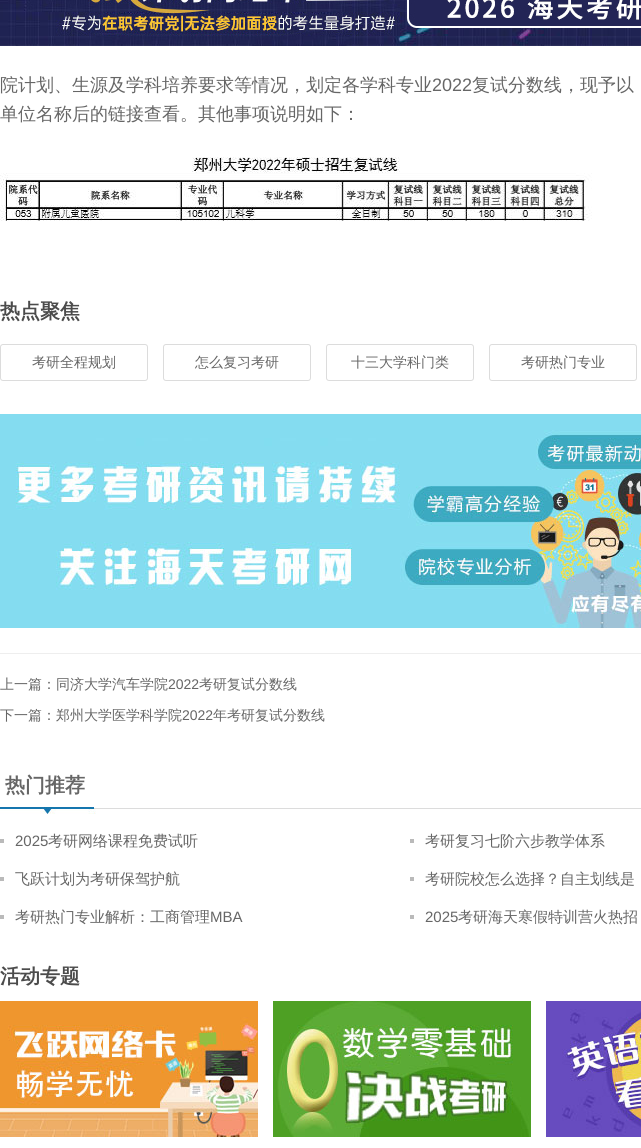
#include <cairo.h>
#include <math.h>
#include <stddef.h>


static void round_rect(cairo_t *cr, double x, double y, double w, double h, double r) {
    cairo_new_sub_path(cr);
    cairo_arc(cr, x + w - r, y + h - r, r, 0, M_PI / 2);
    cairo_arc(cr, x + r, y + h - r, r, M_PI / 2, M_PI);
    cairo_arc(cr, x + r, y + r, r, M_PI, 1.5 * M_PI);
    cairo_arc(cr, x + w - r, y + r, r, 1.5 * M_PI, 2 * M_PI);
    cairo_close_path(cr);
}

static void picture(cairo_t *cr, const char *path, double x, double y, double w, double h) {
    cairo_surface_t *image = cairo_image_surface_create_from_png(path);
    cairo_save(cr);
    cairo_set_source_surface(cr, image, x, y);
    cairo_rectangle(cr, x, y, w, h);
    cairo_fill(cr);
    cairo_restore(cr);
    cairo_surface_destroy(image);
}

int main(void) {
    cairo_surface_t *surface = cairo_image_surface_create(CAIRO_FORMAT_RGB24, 641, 1148);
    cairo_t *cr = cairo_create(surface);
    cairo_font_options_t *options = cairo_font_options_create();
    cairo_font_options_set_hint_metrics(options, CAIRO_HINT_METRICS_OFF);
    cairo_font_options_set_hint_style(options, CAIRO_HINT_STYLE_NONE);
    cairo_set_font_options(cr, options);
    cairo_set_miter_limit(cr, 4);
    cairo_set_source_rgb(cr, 1, 1, 1);
    cairo_paint(cr);
    picture(cr, "img1.png", 0, 0, 641, 46);
    cairo_select_font_face(cr, "WenQuanYi Zen Hei Medium", CAIRO_FONT_SLANT_NORMAL, CAIRO_FONT_WEIGHT_NORMAL);
    cairo_set_font_size(cr, 18);
    cairo_set_source_rgb(cr, 0.4, 0.4, 0.4);
    cairo_move_to(cr, 0, 91);
    cairo_show_text(cr, "院计划、生源及学科培养要求等情况，划定各学科专业");
    cairo_select_font_face(cr, "Liberation Sans", CAIRO_FONT_SLANT_NORMAL, CAIRO_FONT_WEIGHT_NORMAL);
    cairo_move_to(cr, 432, 91);
    cairo_show_text(cr, "2022");
    cairo_select_font_face(cr, "WenQuanYi Zen Hei Medium", CAIRO_FONT_SLANT_NORMAL, CAIRO_FONT_WEIGHT_NORMAL);
    cairo_move_to(cr, 472, 91);
    cairo_show_text(cr, "复试分数线，现予以");
    cairo_move_to(cr, 0, 120);
    cairo_show_text(cr, "单位名称后的链接查看。其他事项说明如下：");
    picture(cr, "img2.png", 0, 157, 592, 64);
    cairo_select_font_face(cr, "WenQuanYi Zen Hei", CAIRO_FONT_SLANT_NORMAL, CAIRO_FONT_WEIGHT_BOLD);
    cairo_set_font_size(cr, 20);
    cairo_set_source_rgb(cr, 0.294, 0.294, 0.294);
    cairo_move_to(cr, 0, 318);
    cairo_show_text(cr, "热点聚焦");
    round_rect(cr, 0.5, 344.5, 147, 36, 2.5);
    cairo_set_source_rgb(cr, 0.863, 0.863, 0.863);
    cairo_set_line_width(cr, 1);
    cairo_stroke(cr);
    cairo_select_font_face(cr, "WenQuanYi Zen Hei Medium", CAIRO_FONT_SLANT_NORMAL, CAIRO_FONT_WEIGHT_NORMAL);
    cairo_set_font_size(cr, 14);
    cairo_set_source_rgb(cr, 0.4, 0.4, 0.4);
    cairo_move_to(cr, 32, 367);
    cairo_show_text(cr, "考研全程规划");
    round_rect(cr, 163.5, 344.5, 147, 36, 2.5);
    cairo_set_source_rgb(cr, 0.863, 0.863, 0.863);
    cairo_stroke(cr);
    cairo_set_source_rgb(cr, 0.4, 0.4, 0.4);
    cairo_move_to(cr, 195, 367);
    cairo_show_text(cr, "怎么复习考研");
    round_rect(cr, 326.5, 344.5, 147, 36, 2.5);
    cairo_set_source_rgb(cr, 0.863, 0.863, 0.863);
    cairo_stroke(cr);
    cairo_set_source_rgb(cr, 0.4, 0.4, 0.4);
    cairo_move_to(cr, 351, 367);
    cairo_show_text(cr, "十三大学科门类");
    round_rect(cr, 489.5, 344.5, 147, 36, 2.5);
    cairo_set_source_rgb(cr, 0.863, 0.863, 0.863);
    cairo_stroke(cr);
    cairo_set_source_rgb(cr, 0.4, 0.4, 0.4);
    cairo_move_to(cr, 521, 367);
    cairo_show_text(cr, "考研热门专业");
    picture(cr, "img3.png", 0, 414, 641, 214);
    cairo_set_source_rgb(cr, 0.933, 0.933, 0.933);
    cairo_rectangle(cr, 0, 653, 641, 1);
    cairo_fill(cr);
    cairo_set_source_rgb(cr, 0.4, 0.4, 0.4);
    cairo_move_to(cr, 0, 689);
    cairo_show_text(cr, "上一篇：同济大学汽车学院");
    cairo_select_font_face(cr, "Liberation Sans", CAIRO_FONT_SLANT_NORMAL, CAIRO_FONT_WEIGHT_NORMAL);
    cairo_move_to(cr, 168, 689);
    cairo_show_text(cr, "2022");
    cairo_select_font_face(cr, "WenQuanYi Zen Hei Medium", CAIRO_FONT_SLANT_NORMAL, CAIRO_FONT_WEIGHT_NORMAL);
    cairo_move_to(cr, 199, 689);
    cairo_show_text(cr, "考研复试分数线");
    cairo_move_to(cr, 0, 720);
    cairo_show_text(cr, "下一篇：郑州大学医学科学院");
    cairo_select_font_face(cr, "Liberation Sans", CAIRO_FONT_SLANT_NORMAL, CAIRO_FONT_WEIGHT_NORMAL);
    cairo_move_to(cr, 182, 720);
    cairo_show_text(cr, "2022");
    cairo_select_font_face(cr, "WenQuanYi Zen Hei Medium", CAIRO_FONT_SLANT_NORMAL, CAIRO_FONT_WEIGHT_NORMAL);
    cairo_move_to(cr, 213, 720);
    cairo_show_text(cr, "年考研复试分数线");
    picture(cr, "img4.png", 0, 807, 641, 7);
    cairo_select_font_face(cr, "WenQuanYi Zen Hei", CAIRO_FONT_SLANT_NORMAL, CAIRO_FONT_WEIGHT_BOLD);
    cairo_set_font_size(cr, 20);
    cairo_move_to(cr, 5, 792);
    cairo_show_text(cr, "热门推荐");
    cairo_set_source_rgb(cr, 0.729, 0.729, 0.729);
    cairo_rectangle(cr, 0, 839, 4, 4);
    cairo_fill(cr);
    cairo_select_font_face(cr, "Liberation Sans", CAIRO_FONT_SLANT_NORMAL, CAIRO_FONT_WEIGHT_NORMAL);
    cairo_set_font_size(cr, 15);
    cairo_set_source_rgb(cr, 0.4, 0.4, 0.4);
    cairo_move_to(cr, 15, 846);
    cairo_show_text(cr, "2025");
    cairo_select_font_face(cr, "WenQuanYi Zen Hei Medium", CAIRO_FONT_SLANT_NORMAL, CAIRO_FONT_WEIGHT_NORMAL);
    cairo_move_to(cr, 48, 846);
    cairo_show_text(cr, "考研网络课程免费试听");
    cairo_set_source_rgb(cr, 0.729, 0.729, 0.729);
    cairo_rectangle(cr, 410, 839, 4, 4);
    cairo_fill(cr);
    cairo_set_source_rgb(cr, 0.4, 0.4, 0.4);
    cairo_move_to(cr, 425, 846);
    cairo_show_text(cr, "考研复习七阶六步教学体系");
    cairo_set_source_rgb(cr, 0.729, 0.729, 0.729);
    cairo_rectangle(cr, 0, 877, 4, 4);
    cairo_fill(cr);
    cairo_set_source_rgb(cr, 0.4, 0.4, 0.4);
    cairo_move_to(cr, 15, 884);
    cairo_show_text(cr, "飞跃计划为考研保驾护航");
    cairo_set_source_rgb(cr, 0.729, 0.729, 0.729);
    cairo_rectangle(cr, 410, 877, 4, 4);
    cairo_fill(cr);
    cairo_set_source_rgb(cr, 0.4, 0.4, 0.4);
    cairo_move_to(cr, 425, 884);
    cairo_show_text(cr, "考研院校怎么选择？自主划线是");
    cairo_set_source_rgb(cr, 0.729, 0.729, 0.729);
    cairo_rectangle(cr, 0, 915, 4, 4);
    cairo_fill(cr);
    cairo_set_source_rgb(cr, 0.4, 0.4, 0.4);
    cairo_move_to(cr, 15, 922);
    cairo_show_text(cr, "考研热门专业解析：工商管理");
    cairo_select_font_face(cr, "Liberation Sans", CAIRO_FONT_SLANT_NORMAL, CAIRO_FONT_WEIGHT_NORMAL);
    cairo_move_to(cr, 210, 922);
    cairo_show_text(cr, "MBA");
    cairo_set_source_rgb(cr, 0.729, 0.729, 0.729);
    cairo_rectangle(cr, 410, 915, 4, 4);
    cairo_fill(cr);
    cairo_set_source_rgb(cr, 0.4, 0.4, 0.4);
    cairo_move_to(cr, 425, 922);
    cairo_show_text(cr, "2025");
    cairo_select_font_face(cr, "WenQuanYi Zen Hei Medium", CAIRO_FONT_SLANT_NORMAL, CAIRO_FONT_WEIGHT_NORMAL);
    cairo_move_to(cr, 458, 922);
    cairo_show_text(cr, "考研海天寒假特训营火热招");
    cairo_select_font_face(cr, "WenQuanYi Zen Hei", CAIRO_FONT_SLANT_NORMAL, CAIRO_FONT_WEIGHT_BOLD);
    cairo_set_font_size(cr, 20);
    cairo_set_source_rgb(cr, 0.294, 0.294, 0.294);
    cairo_move_to(cr, 0, 983);
    cairo_show_text(cr, "活动专题");
    picture(cr, "img5.png", 0, 1001, 258, 136);
    picture(cr, "img6.png", 273, 1001, 258, 136);
    picture(cr, "img7.png", 546, 1001, 95, 136);
    cairo_surface_write_to_png(surface, "page.png");
    cairo_font_options_destroy(options);
    cairo_destroy(cr);
    cairo_surface_destroy(surface);
    return 0;
}
